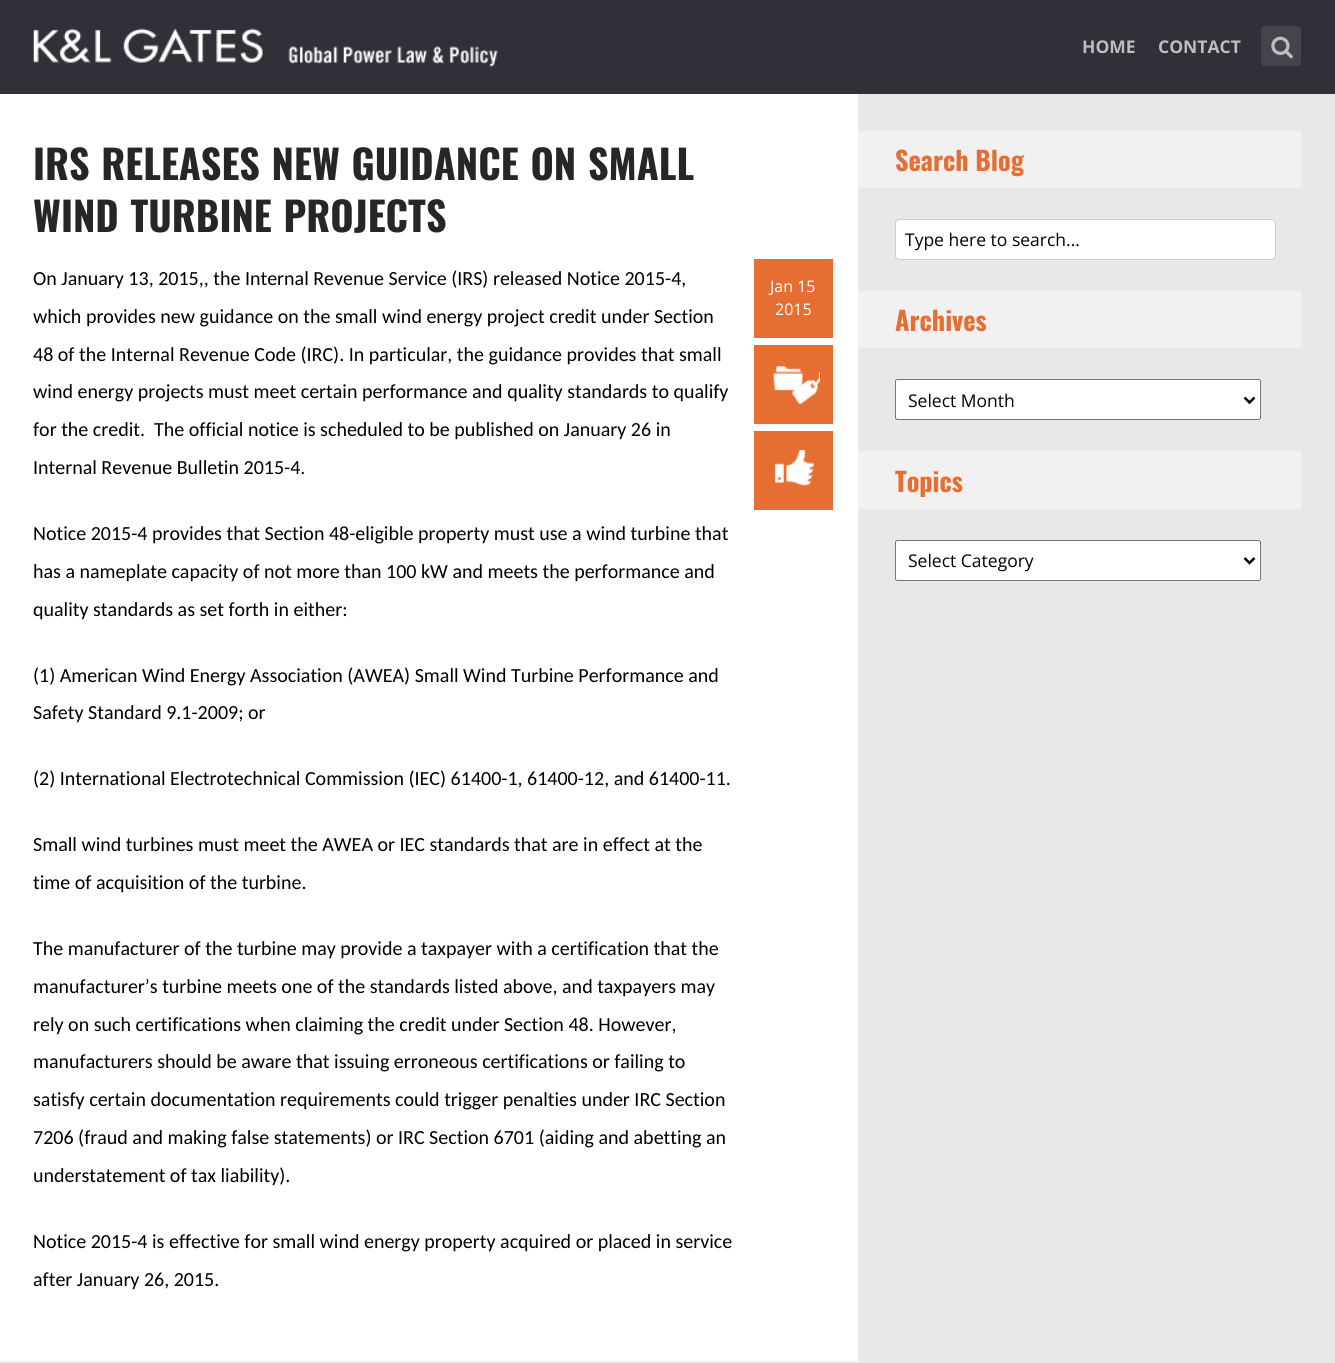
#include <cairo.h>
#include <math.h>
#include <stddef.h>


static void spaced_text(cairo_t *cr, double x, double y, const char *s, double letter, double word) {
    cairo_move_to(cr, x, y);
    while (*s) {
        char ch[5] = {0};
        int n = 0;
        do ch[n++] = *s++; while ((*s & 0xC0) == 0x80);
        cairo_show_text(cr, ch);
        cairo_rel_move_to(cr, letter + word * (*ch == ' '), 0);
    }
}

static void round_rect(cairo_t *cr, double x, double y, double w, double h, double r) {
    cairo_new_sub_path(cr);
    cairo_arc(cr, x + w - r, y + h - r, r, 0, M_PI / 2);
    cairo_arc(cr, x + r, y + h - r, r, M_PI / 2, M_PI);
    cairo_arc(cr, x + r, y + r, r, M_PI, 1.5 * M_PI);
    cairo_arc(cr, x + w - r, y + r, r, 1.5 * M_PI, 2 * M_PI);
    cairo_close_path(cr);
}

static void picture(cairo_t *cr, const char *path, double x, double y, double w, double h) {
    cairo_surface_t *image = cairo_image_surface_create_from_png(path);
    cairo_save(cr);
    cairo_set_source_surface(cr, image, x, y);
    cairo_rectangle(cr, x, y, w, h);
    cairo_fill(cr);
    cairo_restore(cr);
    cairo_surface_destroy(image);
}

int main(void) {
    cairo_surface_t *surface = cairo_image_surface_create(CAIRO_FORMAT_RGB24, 1335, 1363);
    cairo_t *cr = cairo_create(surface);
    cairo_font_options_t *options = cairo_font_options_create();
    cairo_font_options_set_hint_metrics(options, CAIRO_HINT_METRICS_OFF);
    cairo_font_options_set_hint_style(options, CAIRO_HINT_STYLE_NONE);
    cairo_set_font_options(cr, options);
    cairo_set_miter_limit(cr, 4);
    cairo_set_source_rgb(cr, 1, 1, 1);
    cairo_paint(cr);
    cairo_set_source_rgb(cr, 0.184, 0.188, 0.22);
    cairo_rectangle(cr, 0, 0, 1335, 94);
    cairo_fill(cr);
    picture(cr, "img1.png", 33, 28, 465, 39);
    cairo_select_font_face(cr, "Open Sans", CAIRO_FONT_SLANT_NORMAL, CAIRO_FONT_WEIGHT_BOLD);
    cairo_set_font_size(cr, 17.5);
    cairo_set_source_rgb(cr, 0.741, 0.741, 0.741);
    cairo_move_to(cr, 1082, 53);
    cairo_show_text(cr, "HOME");
    cairo_move_to(cr, 1158, 53);
    cairo_show_text(cr, "CONTACT");
    cairo_set_source_rgb(cr, 0.267, 0.271, 0.298);
    round_rect(cr, 1261, 26, 40, 40, 4);
    cairo_fill(cr);
    picture(cr, "img2.png", 1271, 36, 22, 23);
    cairo_set_source_rgb(cr, 0.91, 0.91, 0.91);
    cairo_new_path(cr);
    cairo_move_to(cr, 728, 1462);
    cairo_line_to(cr, 728, 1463);
    cairo_line_to(cr, 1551, 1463);
    cairo_line_to(cr, 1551, 94);
    cairo_line_to(cr, 858, 94);
    cairo_line_to(cr, 858, 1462);
    cairo_close_path(cr);
    cairo_fill(cr);
    cairo_select_font_face(cr, "Oswald", CAIRO_FONT_SLANT_NORMAL, CAIRO_FONT_WEIGHT_BOLD);
    cairo_set_font_size(cr, 40);
    cairo_set_source_rgb(cr, 0.157, 0.145, 0.145);
    spaced_text(cr, 33, 180, "IRS RELEASES NEW GUIDANCE ON SMALL", 0, 1.5);
    spaced_text(cr, 33, 232, "WIND TURBINE PROJECTS", 0, 1.5);
    cairo_select_font_face(cr, "Carlito", CAIRO_FONT_SLANT_NORMAL, CAIRO_FONT_WEIGHT_NORMAL);
    cairo_set_font_size(cr, 20);
    cairo_set_source_rgb(cr, 0, 0, 0);
    cairo_move_to(cr, 33, 285);
    cairo_show_text(cr, "On January 13, 2015,, the Internal Revenue Service (IRS) released Notice 2015-4,");
    cairo_move_to(cr, 33, 323);
    cairo_show_text(cr, "which provides new guidance on the small wind energy project credit under Section");
    cairo_move_to(cr, 33, 361);
    cairo_show_text(cr, "48 of the Internal Revenue Code (IRC). In particular, the guidance provides that small");
    cairo_move_to(cr, 33, 398);
    cairo_show_text(cr, "wind energy projects must meet certain performance and quality standards to qualify");
    cairo_move_to(cr, 33, 436);
    cairo_show_text(cr, "for the credit.  The official notice is scheduled to be published on January 26 in");
    cairo_move_to(cr, 33, 474);
    cairo_show_text(cr, "Internal Revenue Bulletin 2015-4.");
    cairo_move_to(cr, 33, 540);
    cairo_show_text(cr, "Notice 2015-4 provides that Section 48-eligible property must use a wind turbine that");
    cairo_move_to(cr, 33, 578);
    cairo_show_text(cr, "has a nameplate capacity of not more than 100 kW and meets the performance and");
    cairo_move_to(cr, 33, 616);
    cairo_show_text(cr, "quality standards as set forth in either:");
    cairo_move_to(cr, 33, 682);
    cairo_show_text(cr, "(1) American Wind Energy Association (AWEA) Small Wind Turbine Performance and");
    cairo_move_to(cr, 33, 719);
    cairo_show_text(cr, "Safety Standard 9.1-2009; or");
    cairo_move_to(cr, 33, 785);
    cairo_show_text(cr, "(2) International Electrotechnical Commission (IEC) 61400-1, 61400-12, and 61400-11.");
    cairo_move_to(cr, 33, 851);
    cairo_show_text(cr, "Small wind turbines must meet the AWEA or IEC standards that are in effect at the");
    cairo_move_to(cr, 33, 889);
    cairo_show_text(cr, "time of acquisition of the turbine.");
    cairo_move_to(cr, 33, 955);
    cairo_show_text(cr, "The manufacturer of the turbine may provide a taxpayer with a certification that the");
    cairo_move_to(cr, 33, 993);
    cairo_show_text(cr, "manufacturer’s turbine meets one of the standards listed above, and taxpayers may");
    cairo_move_to(cr, 33, 1031);
    cairo_show_text(cr, "rely on such certifications when claiming the credit under Section 48. However,");
    cairo_move_to(cr, 33, 1068);
    cairo_show_text(cr, "manufacturers should be aware that issuing erroneous certifications or failing to");
    cairo_move_to(cr, 33, 1106);
    cairo_show_text(cr, "satisfy certain documentation requirements could trigger penalties under IRC Section");
    cairo_move_to(cr, 33, 1144);
    cairo_show_text(cr, "7206 (fraud and making false statements) or IRC Section 6701 (aiding and abetting an");
    cairo_move_to(cr, 33, 1182);
    cairo_show_text(cr, "understatement of tax liability).");
    cairo_move_to(cr, 33, 1248);
    cairo_show_text(cr, "Notice 2015-4 is effective for small wind energy property acquired or placed in service");
    cairo_move_to(cr, 33, 1286);
    cairo_show_text(cr, "after January 26, 2015.");
    cairo_set_source_rgb(cr, 0.902, 0.431, 0.196);
    cairo_rectangle(cr, 754, 259, 79, 79);
    cairo_fill(cr);
    cairo_select_font_face(cr, "Open Sans", CAIRO_FONT_SLANT_NORMAL, CAIRO_FONT_WEIGHT_NORMAL);
    cairo_set_font_size(cr, 16);
    cairo_set_source_rgb(cr, 1, 1, 1);
    cairo_move_to(cr, 770, 292);
    cairo_show_text(cr, "Jan 15");
    cairo_move_to(cr, 775, 315);
    cairo_show_text(cr, "2015");
    cairo_set_source_rgb(cr, 0.902, 0.431, 0.196);
    cairo_rectangle(cr, 754, 345, 79, 79);
    cairo_fill(cr);
    picture(cr, "img3.png", 773, 366, 47, 38);
    cairo_rectangle(cr, 754, 431, 79, 79);
    cairo_fill(cr);
    picture(cr, "img4.png", 774, 450, 40, 36);
    cairo_set_source_rgb(cr, 0.933, 0.933, 0.933);
    cairo_new_path(cr);
    cairo_move_to(cr, -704, 1361);
    cairo_line_to(cr, -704, 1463);
    cairo_line_to(cr, 120, 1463);
    cairo_line_to(cr, 120, 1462);
    cairo_line_to(cr, 34, 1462);
    cairo_line_to(cr, 34, 1361);
    cairo_line_to(cr, 120, 1361);
    cairo_close_path(cr);
    cairo_fill(cr);
    cairo_rectangle(cr, 34, 1361, 824, 2);
    cairo_fill(cr);
    cairo_set_source_rgb(cr, 0.945, 0.945, 0.945);
    cairo_rectangle(cr, 858, 131, 443, 57);
    cairo_fill(cr);
    cairo_select_font_face(cr, "Oswald", CAIRO_FONT_SLANT_NORMAL, CAIRO_FONT_WEIGHT_BOLD);
    cairo_set_font_size(cr, 26.25);
    cairo_set_source_rgb(cr, 0.902, 0.431, 0.196);
    cairo_move_to(cr, 895, 171);
    cairo_show_text(cr, "Search Blog");
    cairo_set_source_rgb(cr, 1, 1, 1);
    round_rect(cr, 895.5, 219.5, 380, 40, 3.5);
    cairo_fill_preserve(cr);
    cairo_set_source_rgb(cr, 0.8, 0.8, 0.8);
    cairo_set_line_width(cr, 1);
    cairo_stroke(cr);
    cairo_select_font_face(cr, "Open Sans", CAIRO_FONT_SLANT_NORMAL, CAIRO_FONT_WEIGHT_NORMAL);
    cairo_set_font_size(cr, 17.5);
    cairo_set_source_rgb(cr, 0, 0, 0);
    cairo_move_to(cr, 905, 246);
    cairo_show_text(cr, "Type here to search...");
    cairo_set_source_rgb(cr, 0.945, 0.945, 0.945);
    cairo_rectangle(cr, 858, 291, 443, 57);
    cairo_fill(cr);
    cairo_select_font_face(cr, "Oswald", CAIRO_FONT_SLANT_NORMAL, CAIRO_FONT_WEIGHT_BOLD);
    cairo_set_font_size(cr, 26.25);
    cairo_set_source_rgb(cr, 0.902, 0.431, 0.196);
    cairo_move_to(cr, 895, 331);
    cairo_show_text(cr, "Archives");
    cairo_set_source_rgb(cr, 1, 1, 1);
    round_rect(cr, 895.5, 379.5, 365, 40, 2);
    cairo_fill_preserve(cr);
    cairo_set_source_rgb(cr, 0.463, 0.463, 0.463);
    cairo_stroke(cr);
    cairo_new_path(cr);
    cairo_move_to(cr, 1244.5, 397.5);
    cairo_line_to(cr, 1249.5, 402.5);
    cairo_line_to(cr, 1254.5, 397.5);
    cairo_set_source_rgb(cr, 0, 0, 0);
    cairo_set_line_width(cr, 2.5);
    cairo_stroke(cr);
    cairo_select_font_face(cr, "Open Sans", CAIRO_FONT_SLANT_NORMAL, CAIRO_FONT_WEIGHT_NORMAL);
    cairo_set_font_size(cr, 17.5);
    cairo_move_to(cr, 908, 407);
    cairo_show_text(cr, "Select Month");
    cairo_set_source_rgb(cr, 0.945, 0.945, 0.945);
    cairo_rectangle(cr, 858, 451, 443, 58);
    cairo_fill(cr);
    cairo_select_font_face(cr, "Oswald", CAIRO_FONT_SLANT_NORMAL, CAIRO_FONT_WEIGHT_BOLD);
    cairo_set_font_size(cr, 26.25);
    cairo_set_source_rgb(cr, 0.902, 0.431, 0.196);
    cairo_move_to(cr, 895, 492);
    cairo_show_text(cr, "Topics");
    cairo_set_source_rgb(cr, 1, 1, 1);
    round_rect(cr, 895.5, 540.5, 365, 40, 2);
    cairo_fill_preserve(cr);
    cairo_set_source_rgb(cr, 0.463, 0.463, 0.463);
    cairo_set_line_width(cr, 1);
    cairo_stroke(cr);
    cairo_new_path(cr);
    cairo_move_to(cr, 1244.5, 558);
    cairo_line_to(cr, 1249.5, 563);
    cairo_line_to(cr, 1254.5, 558);
    cairo_set_source_rgb(cr, 0, 0, 0);
    cairo_set_line_width(cr, 2.5);
    cairo_stroke(cr);
    cairo_select_font_face(cr, "Open Sans", CAIRO_FONT_SLANT_NORMAL, CAIRO_FONT_WEIGHT_NORMAL);
    cairo_set_font_size(cr, 17.5);
    cairo_move_to(cr, 908, 567);
    cairo_show_text(cr, "Select Category");
    cairo_surface_write_to_png(surface, "page.png");
    cairo_font_options_destroy(options);
    cairo_destroy(cr);
    cairo_surface_destroy(surface);
    return 0;
}
